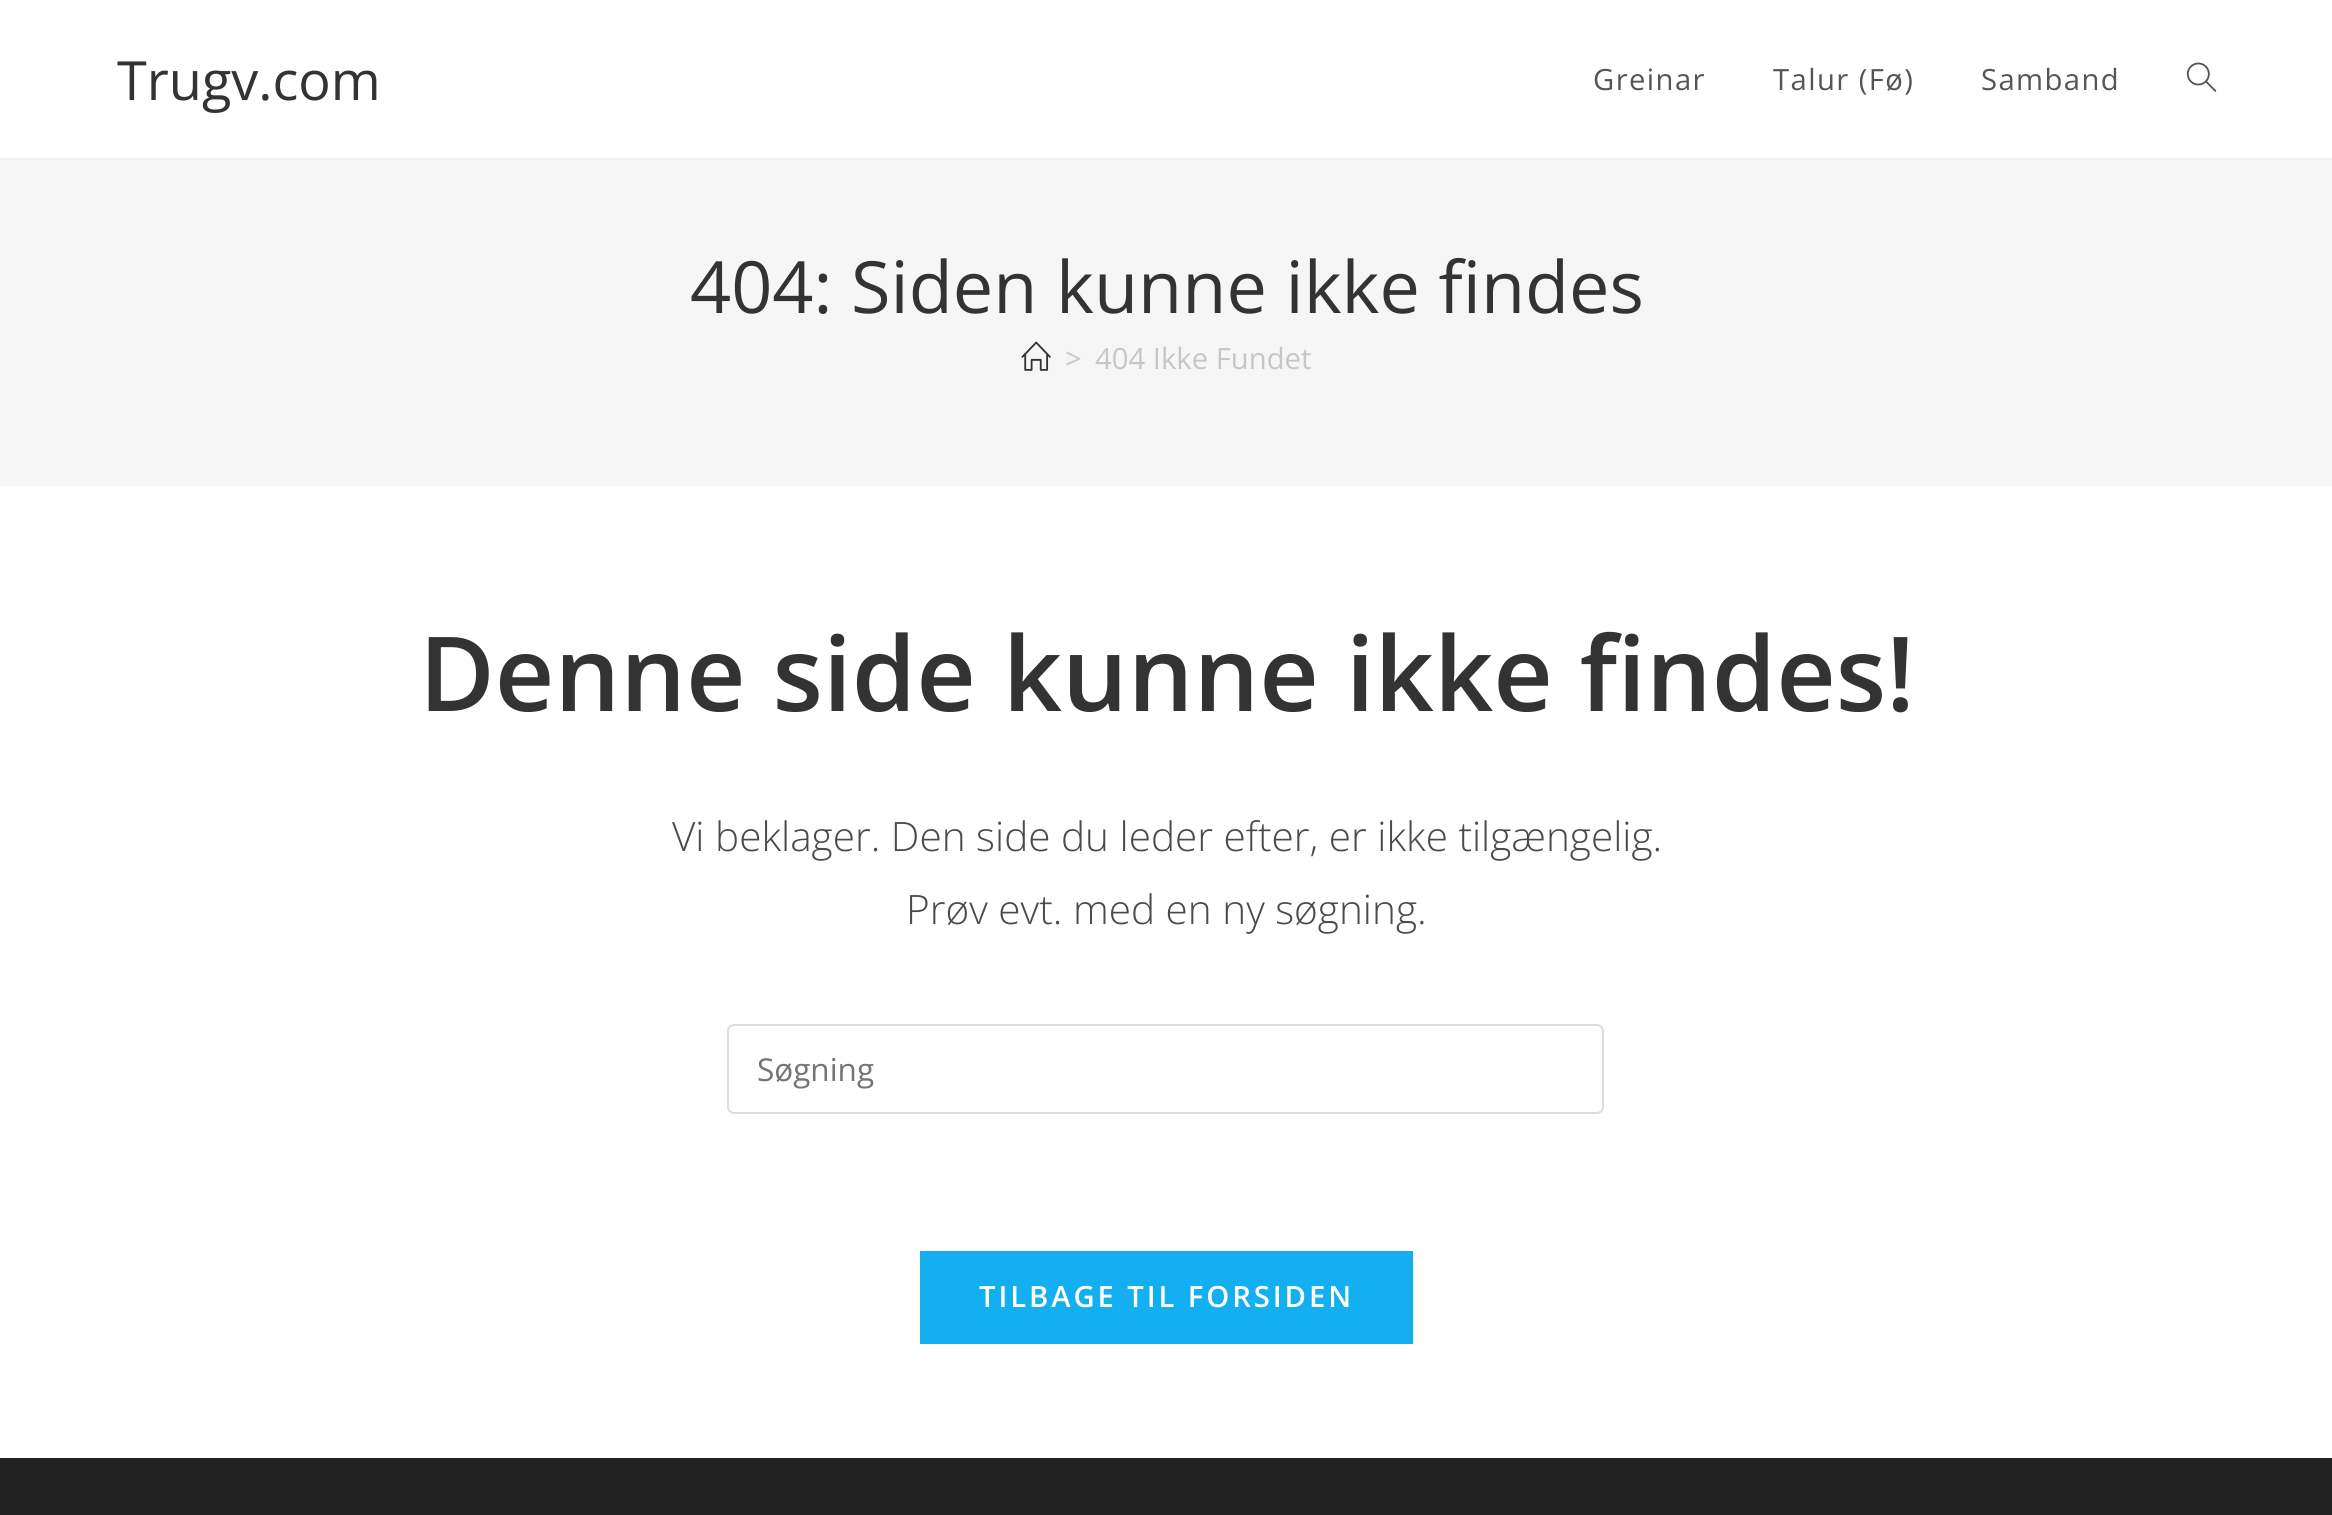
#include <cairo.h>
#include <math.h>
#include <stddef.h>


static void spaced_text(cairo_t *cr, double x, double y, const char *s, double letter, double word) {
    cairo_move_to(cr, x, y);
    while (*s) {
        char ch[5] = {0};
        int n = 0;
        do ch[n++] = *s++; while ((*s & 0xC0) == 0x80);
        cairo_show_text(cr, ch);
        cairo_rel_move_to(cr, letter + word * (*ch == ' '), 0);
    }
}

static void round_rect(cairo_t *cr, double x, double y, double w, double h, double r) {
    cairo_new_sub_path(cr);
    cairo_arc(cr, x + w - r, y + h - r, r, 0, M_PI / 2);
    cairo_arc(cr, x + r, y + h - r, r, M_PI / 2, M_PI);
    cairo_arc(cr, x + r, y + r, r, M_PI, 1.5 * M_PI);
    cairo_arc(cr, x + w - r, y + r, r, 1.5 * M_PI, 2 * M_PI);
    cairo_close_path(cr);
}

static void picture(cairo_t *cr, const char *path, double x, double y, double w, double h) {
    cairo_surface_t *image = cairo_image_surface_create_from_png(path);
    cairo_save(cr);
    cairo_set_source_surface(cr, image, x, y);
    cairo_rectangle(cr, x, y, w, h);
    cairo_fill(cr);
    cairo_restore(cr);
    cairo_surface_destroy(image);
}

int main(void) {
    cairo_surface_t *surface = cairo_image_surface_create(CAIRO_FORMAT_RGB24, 2332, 1515);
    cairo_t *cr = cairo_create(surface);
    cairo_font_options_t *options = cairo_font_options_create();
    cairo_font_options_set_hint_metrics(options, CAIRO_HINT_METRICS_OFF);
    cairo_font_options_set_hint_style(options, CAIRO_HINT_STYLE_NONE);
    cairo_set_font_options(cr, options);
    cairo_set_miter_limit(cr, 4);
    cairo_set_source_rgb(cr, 1, 1, 1);
    cairo_paint(cr);
    cairo_set_source_rgb(cr, 0.945, 0.945, 0.945);
    cairo_rectangle(cr, 0, 158, 2332, 2);
    cairo_fill(cr);
    cairo_select_font_face(cr, "Open Sans", CAIRO_FONT_SLANT_NORMAL, CAIRO_FONT_WEIGHT_NORMAL);
    cairo_set_font_size(cr, 54);
    cairo_set_source_rgb(cr, 0.2, 0.2, 0.2);
    cairo_move_to(cr, 117, 100);
    cairo_show_text(cr, "Trugv.com");
    cairo_set_font_size(cr, 29.25);
    cairo_set_source_rgb(cr, 0.333, 0.333, 0.333);
    spaced_text(cr, 1593, 90, "Greinar", 1.4, 0);
    spaced_text(cr, 1773, 90, "Talur (Fø)", 1.4, 0);
    spaced_text(cr, 1981, 90, "Samband", 1.4, 0);
    picture(cr, "img1.png", 2186, 62, 31, 30);
    cairo_set_source_rgb(cr, 0.961, 0.961, 0.961);
    cairo_rectangle(cr, 0, 160, 2332, 326);
    cairo_fill(cr);
    cairo_set_font_size(cr, 72);
    cairo_set_source_rgb(cr, 0.2, 0.2, 0.2);
    cairo_move_to(cr, 690, 313);
    cairo_show_text(cr, "404: Siden kunne ikke findes");
    picture(cr, "img2.png", 1021, 341, 30, 30);
    cairo_set_font_size(cr, 29.25);
    cairo_set_source_rgb(cr, 0.776, 0.776, 0.776);
    cairo_move_to(cr, 1065, 369);
    cairo_show_text(cr, ">");
    cairo_move_to(cr, 1095, 369);
    cairo_show_text(cr, "404 Ikke Fundet");
    cairo_select_font_face(cr, "Open Sans SemiBold", CAIRO_FONT_SLANT_NORMAL, CAIRO_FONT_WEIGHT_NORMAL);
    cairo_set_font_size(cr, 103.5);
    cairo_set_source_rgb(cr, 0.2, 0.2, 0.2);
    cairo_move_to(cr, 419, 711);
    cairo_show_text(cr, "Denne side kunne ikke findes!");
    cairo_select_font_face(cr, "Open Sans Light", CAIRO_FONT_SLANT_NORMAL, CAIRO_FONT_WEIGHT_NORMAL);
    cairo_set_font_size(cr, 40.5);
    cairo_set_source_rgb(cr, 0.29, 0.29, 0.29);
    cairo_move_to(cr, 672, 851);
    cairo_show_text(cr, "Vi beklager. Den side du leder efter, er ikke tilgængelig.");
    cairo_move_to(cr, 906, 924);
    cairo_show_text(cr, "Prøv evt. med en ny søgning.");
    round_rect(cr, 728, 1025, 875, 88, 6);
    cairo_set_source_rgb(cr, 0.867, 0.867, 0.867);
    cairo_stroke(cr);
    cairo_select_font_face(cr, "Open Sans", CAIRO_FONT_SLANT_NORMAL, CAIRO_FONT_WEIGHT_NORMAL);
    cairo_set_font_size(cr, 31.5);
    cairo_set_source_rgb(cr, 0.459, 0.459, 0.459);
    cairo_move_to(cr, 757, 1081);
    cairo_show_text(cr, "Søgning");
    cairo_set_source_rgb(cr, 0.075, 0.686, 0.941);
    cairo_rectangle(cr, 920, 1251, 493, 93);
    cairo_fill(cr);
    cairo_select_font_face(cr, "Open Sans SemiBold", CAIRO_FONT_SLANT_NORMAL, CAIRO_FONT_WEIGHT_NORMAL);
    cairo_set_font_size(cr, 29.25);
    cairo_set_source_rgb(cr, 1, 1, 1);
    spaced_text(cr, 979, 1307, "TILBAGE TIL FORSIDEN", 2.9, 0);
    cairo_set_source_rgb(cr, 0.133, 0.133, 0.133);
    cairo_rectangle(cr, 0, 1458, 2332, 57);
    cairo_fill(cr);
    cairo_surface_write_to_png(surface, "page.png");
    cairo_font_options_destroy(options);
    cairo_destroy(cr);
    cairo_surface_destroy(surface);
    return 0;
}
